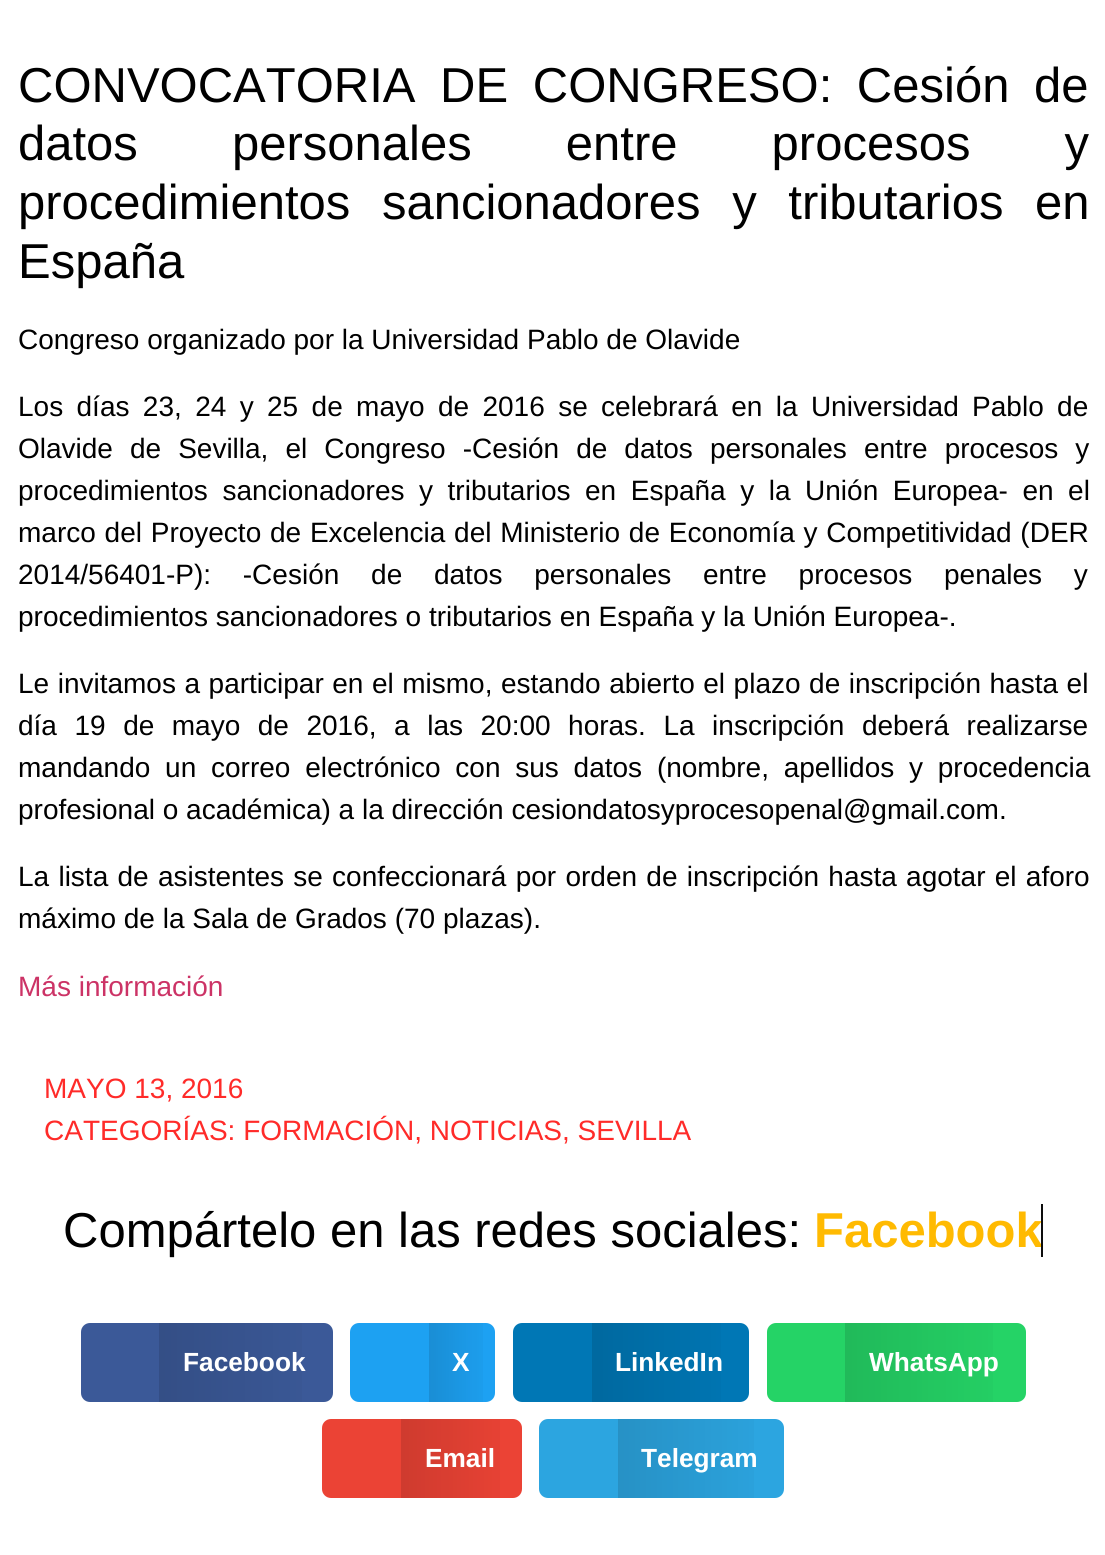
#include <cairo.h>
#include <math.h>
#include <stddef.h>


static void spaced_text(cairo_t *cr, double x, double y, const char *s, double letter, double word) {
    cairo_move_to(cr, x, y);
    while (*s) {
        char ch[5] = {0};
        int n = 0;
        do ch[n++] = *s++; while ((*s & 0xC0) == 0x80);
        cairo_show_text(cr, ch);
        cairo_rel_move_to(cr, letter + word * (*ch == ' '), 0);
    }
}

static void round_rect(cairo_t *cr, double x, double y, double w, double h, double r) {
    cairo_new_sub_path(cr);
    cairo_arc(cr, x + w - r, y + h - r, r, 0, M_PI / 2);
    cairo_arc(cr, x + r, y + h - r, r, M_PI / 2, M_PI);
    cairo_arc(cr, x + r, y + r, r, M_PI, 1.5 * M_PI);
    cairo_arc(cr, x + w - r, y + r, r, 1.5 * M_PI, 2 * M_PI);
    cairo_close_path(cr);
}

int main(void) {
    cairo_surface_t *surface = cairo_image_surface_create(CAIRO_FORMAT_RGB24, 1105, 1555);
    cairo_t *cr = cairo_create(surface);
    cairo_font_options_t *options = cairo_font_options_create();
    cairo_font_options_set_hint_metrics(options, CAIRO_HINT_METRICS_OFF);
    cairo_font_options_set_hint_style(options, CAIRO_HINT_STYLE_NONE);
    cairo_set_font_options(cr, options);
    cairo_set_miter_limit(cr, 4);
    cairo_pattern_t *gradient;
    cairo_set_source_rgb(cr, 1, 1, 1);
    cairo_paint(cr);
    cairo_select_font_face(cr, "Liberation Sans", CAIRO_FONT_SLANT_NORMAL, CAIRO_FONT_WEIGHT_NORMAL);
    cairo_set_font_size(cr, 49);
    cairo_set_source_rgb(cr, 0, 0, 0);
    spaced_text(cr, 18, 102, "CONVOCATORIA DE CONGRESO: Cesión de", 0, 11);
    spaced_text(cr, 18, 160, "datos personales entre procesos y", 0, 80.5);
    spaced_text(cr, 18, 219, "procedimientos sancionadores y tributarios en", 0, 18);
    cairo_move_to(cr, 18, 278);
    cairo_show_text(cr, "España");
    cairo_set_font_size(cr, 28);
    cairo_move_to(cr, 18, 349);
    cairo_show_text(cr, "Congreso organizado por la Universidad Pablo de Olavide");
    spaced_text(cr, 18, 416, "Los días 23, 24 y 25 de mayo de 2016 se celebrará en la Universidad Pablo de", 0, 5.6);
    spaced_text(cr, 18, 458, "Olavide de Sevilla, el Congreso -Cesión de datos personales entre procesos y", 0, 9.25);
    spaced_text(cr, 18, 500, "procedimientos sancionadores y tributarios en España y la Unión Europea- en el", 0, 6.75);
    spaced_text(cr, 18, 542, "marco del Proyecto de Excelencia del Ministerio de Economía y Competitividad (DER", 0, 1);
    spaced_text(cr, 18, 584, "2014/56401-P): -Cesión de datos personales entre procesos penales y", 0, 24);
    cairo_move_to(cr, 18, 626);
    cairo_show_text(cr, "procedimientos sancionadores o tributarios en España y la Unión Europea-.");
    spaced_text(cr, 18, 693, "Le invitamos a participar en el mismo, estando abierto el plazo de inscripción hasta el", 0, 0.75);
    spaced_text(cr, 18, 735, "día 19 de mayo de 2016, a las 20:00 horas. La inscripción deberá realizarse", 0, 9.75);
    spaced_text(cr, 18, 777, "mandando un correo electrónico con sus datos (nombre, apellidos y procedencia", 0, 7);
    cairo_move_to(cr, 18, 819);
    cairo_show_text(cr, "profesional o académica) a la dirección cesiondatosyprocesopenal@gmail.com.");
    spaced_text(cr, 18, 886, "La lista de asistentes se confeccionará por orden de inscripción hasta agotar el aforo", 0, 1.5);
    cairo_move_to(cr, 18, 928);
    cairo_show_text(cr, "máximo de la Sala de Grados (70 plazas).");
    cairo_set_source_rgb(cr, 0.8, 0.2, 0.4);
    cairo_move_to(cr, 18, 996);
    cairo_show_text(cr, "Más información");
    cairo_set_source_rgb(cr, 1, 0.169, 0.161);
    cairo_move_to(cr, 44, 1098);
    cairo_show_text(cr, "MAYO 13, 2016");
    cairo_move_to(cr, 44, 1140);
    cairo_show_text(cr, "CATEGORÍAS: FORMACIÓN, NOTICIAS, SEVILLA");
    cairo_set_font_size(cr, 49);
    cairo_set_source_rgb(cr, 0, 0, 0);
    cairo_move_to(cr, 63, 1247);
    cairo_show_text(cr, "Compártelo en las redes sociales:");
    cairo_select_font_face(cr, "Liberation Sans", CAIRO_FONT_SLANT_NORMAL, CAIRO_FONT_WEIGHT_BOLD);
    cairo_set_source_rgb(cr, 1, 0.729, 0.004);
    cairo_move_to(cr, 814, 1247);
    cairo_show_text(cr, "Facebook");
    cairo_set_source_rgb(cr, 0.051, 0.051, 0.051);
    cairo_rectangle(cr, 1041, 1204, 2, 53);
    cairo_fill(cr);
    cairo_set_source_rgb(cr, 0.231, 0.349, 0.596);
    round_rect(cr, 81, 1323, 252, 79, 9);
    cairo_fill(cr);
    gradient = cairo_pattern_create_linear(159, 1362, 333, 1362);
    cairo_pattern_add_color_stop_rgba(gradient, 0, 0, 0, 0, 0.12);
    cairo_pattern_add_color_stop_rgba(gradient, 1, 0, 0, 0, 0);
    cairo_set_source(cr, gradient);
    cairo_pattern_destroy(gradient);
    cairo_rectangle(cr, 159, 1323, 143, 79);
    cairo_fill(cr);
    cairo_set_font_size(cr, 26.25);
    cairo_set_source_rgb(cr, 1, 1, 1);
    cairo_move_to(cr, 183, 1371);
    cairo_show_text(cr, "Facebook");
    cairo_set_source_rgb(cr, 0.114, 0.631, 0.949);
    round_rect(cr, 350, 1323, 145, 79, 9);
    cairo_fill(cr);
    gradient = cairo_pattern_create_linear(429, 1362, 495, 1362);
    cairo_pattern_add_color_stop_rgba(gradient, 0, 0, 0, 0, 0.12);
    cairo_pattern_add_color_stop_rgba(gradient, 1, 0, 0, 0, 0);
    cairo_set_source(cr, gradient);
    cairo_pattern_destroy(gradient);
    cairo_rectangle(cr, 429, 1323, 54, 79);
    cairo_fill(cr);
    cairo_set_source_rgb(cr, 1, 1, 1);
    cairo_move_to(cr, 452, 1371);
    cairo_show_text(cr, "X");
    cairo_set_source_rgb(cr, 0, 0.467, 0.71);
    round_rect(cr, 513, 1323, 236, 79, 9);
    cairo_fill(cr);
    gradient = cairo_pattern_create_linear(592, 1362, 749, 1362);
    cairo_pattern_add_color_stop_rgba(gradient, 0, 0, 0, 0, 0.12);
    cairo_pattern_add_color_stop_rgba(gradient, 1, 0, 0, 0, 0);
    cairo_set_source(cr, gradient);
    cairo_pattern_destroy(gradient);
    cairo_rectangle(cr, 592, 1323, 129, 79);
    cairo_fill(cr);
    cairo_set_source_rgb(cr, 1, 1, 1);
    cairo_move_to(cr, 615, 1371);
    cairo_show_text(cr, "LinkedIn");
    cairo_set_source_rgb(cr, 0.145, 0.827, 0.4);
    round_rect(cr, 767, 1323, 259, 79, 9);
    cairo_fill(cr);
    gradient = cairo_pattern_create_linear(845, 1362, 1026, 1362);
    cairo_pattern_add_color_stop_rgba(gradient, 0, 0, 0, 0, 0.12);
    cairo_pattern_add_color_stop_rgba(gradient, 1, 0, 0, 0, 0);
    cairo_set_source(cr, gradient);
    cairo_pattern_destroy(gradient);
    cairo_rectangle(cr, 845, 1323, 148, 79);
    cairo_fill(cr);
    cairo_set_source_rgb(cr, 1, 1, 1);
    cairo_move_to(cr, 869, 1371);
    cairo_show_text(cr, "WhatsApp");
    cairo_set_source_rgb(cr, 0.918, 0.263, 0.208);
    round_rect(cr, 322, 1419, 200, 79, 9);
    cairo_fill(cr);
    gradient = cairo_pattern_create_linear(401, 1459, 522, 1459);
    cairo_pattern_add_color_stop_rgba(gradient, 0, 0, 0, 0, 0.12);
    cairo_pattern_add_color_stop_rgba(gradient, 1, 0, 0, 0, 0);
    cairo_set_source(cr, gradient);
    cairo_pattern_destroy(gradient);
    cairo_rectangle(cr, 401, 1419, 99, 79);
    cairo_fill(cr);
    cairo_set_source_rgb(cr, 1, 1, 1);
    cairo_move_to(cr, 425, 1467);
    cairo_show_text(cr, "Email");
    cairo_set_source_rgb(cr, 0.173, 0.647, 0.878);
    round_rect(cr, 539, 1419, 245, 79, 9);
    cairo_fill(cr);
    gradient = cairo_pattern_create_linear(618, 1459, 784, 1459);
    cairo_pattern_add_color_stop_rgba(gradient, 0, 0, 0, 0, 0.12);
    cairo_pattern_add_color_stop_rgba(gradient, 1, 0, 0, 0, 0);
    cairo_set_source(cr, gradient);
    cairo_pattern_destroy(gradient);
    cairo_rectangle(cr, 618, 1419, 136, 79);
    cairo_fill(cr);
    cairo_set_source_rgb(cr, 1, 1, 1);
    cairo_move_to(cr, 641, 1467);
    cairo_show_text(cr, "Telegram");
    cairo_surface_write_to_png(surface, "page.png");
    cairo_font_options_destroy(options);
    cairo_destroy(cr);
    cairo_surface_destroy(surface);
    return 0;
}
